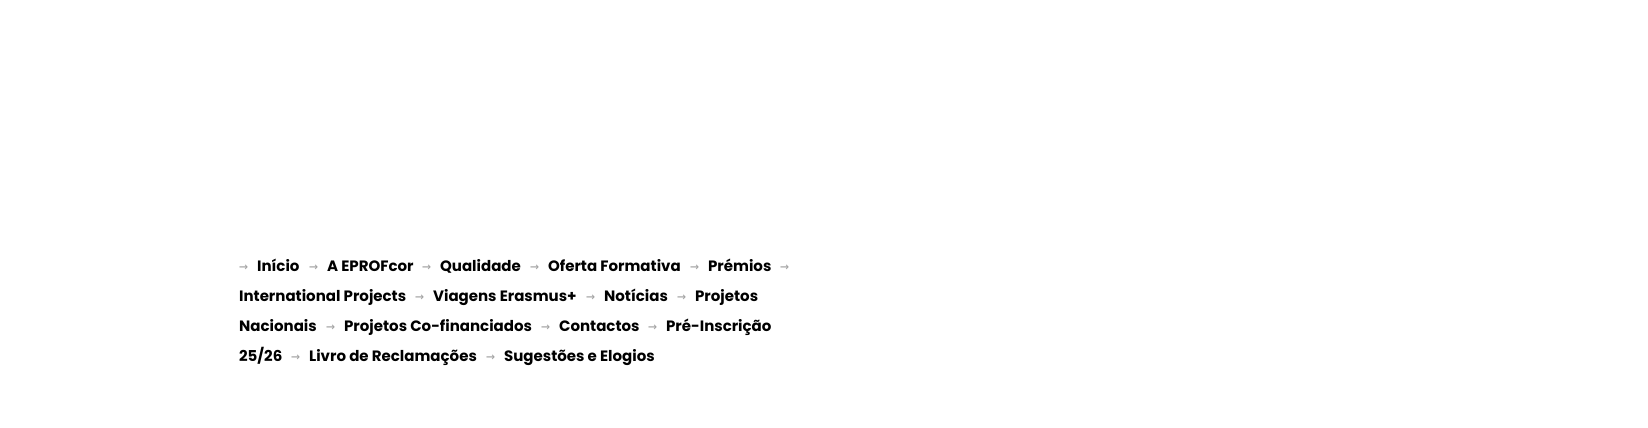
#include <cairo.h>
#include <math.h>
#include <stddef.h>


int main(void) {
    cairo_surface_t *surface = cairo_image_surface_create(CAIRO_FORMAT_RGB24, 1648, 428);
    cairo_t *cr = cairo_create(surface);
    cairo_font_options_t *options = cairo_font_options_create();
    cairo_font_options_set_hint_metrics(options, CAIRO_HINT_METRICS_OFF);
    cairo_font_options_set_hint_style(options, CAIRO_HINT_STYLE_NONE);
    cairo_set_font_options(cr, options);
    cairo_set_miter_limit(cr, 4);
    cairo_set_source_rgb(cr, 1, 1, 1);
    cairo_paint(cr);
    cairo_select_font_face(cr, "DejaVu Sans Mono", CAIRO_FONT_SLANT_NORMAL, CAIRO_FONT_WEIGHT_NORMAL);
    cairo_set_font_size(cr, 15);
    cairo_set_source_rgb(cr, 0.639, 0.639, 0.639);
    cairo_move_to(cr, 239, 271);
    cairo_show_text(cr, "→");
    cairo_select_font_face(cr, "Poppins", CAIRO_FONT_SLANT_NORMAL, CAIRO_FONT_WEIGHT_BOLD);
    cairo_set_source_rgb(cr, 0, 0, 0);
    cairo_move_to(cr, 257, 271);
    cairo_show_text(cr, "Início");
    cairo_select_font_face(cr, "DejaVu Sans Mono", CAIRO_FONT_SLANT_NORMAL, CAIRO_FONT_WEIGHT_NORMAL);
    cairo_set_source_rgb(cr, 0.639, 0.639, 0.639);
    cairo_move_to(cr, 309, 271);
    cairo_show_text(cr, "→");
    cairo_select_font_face(cr, "Poppins", CAIRO_FONT_SLANT_NORMAL, CAIRO_FONT_WEIGHT_BOLD);
    cairo_set_source_rgb(cr, 0, 0, 0);
    cairo_move_to(cr, 327, 271);
    cairo_show_text(cr, "A EPROFcor");
    cairo_select_font_face(cr, "DejaVu Sans Mono", CAIRO_FONT_SLANT_NORMAL, CAIRO_FONT_WEIGHT_NORMAL);
    cairo_set_source_rgb(cr, 0.639, 0.639, 0.639);
    cairo_move_to(cr, 422, 271);
    cairo_show_text(cr, "→");
    cairo_select_font_face(cr, "Poppins", CAIRO_FONT_SLANT_NORMAL, CAIRO_FONT_WEIGHT_BOLD);
    cairo_set_source_rgb(cr, 0, 0, 0);
    cairo_move_to(cr, 440, 271);
    cairo_show_text(cr, "Qualidade");
    cairo_select_font_face(cr, "DejaVu Sans Mono", CAIRO_FONT_SLANT_NORMAL, CAIRO_FONT_WEIGHT_NORMAL);
    cairo_set_source_rgb(cr, 0.639, 0.639, 0.639);
    cairo_move_to(cr, 530, 271);
    cairo_show_text(cr, "→");
    cairo_select_font_face(cr, "Poppins", CAIRO_FONT_SLANT_NORMAL, CAIRO_FONT_WEIGHT_BOLD);
    cairo_set_source_rgb(cr, 0, 0, 0);
    cairo_move_to(cr, 548, 271);
    cairo_show_text(cr, "Oferta Formativa");
    cairo_select_font_face(cr, "DejaVu Sans Mono", CAIRO_FONT_SLANT_NORMAL, CAIRO_FONT_WEIGHT_NORMAL);
    cairo_set_source_rgb(cr, 0.639, 0.639, 0.639);
    cairo_move_to(cr, 690, 271);
    cairo_show_text(cr, "→");
    cairo_select_font_face(cr, "Poppins", CAIRO_FONT_SLANT_NORMAL, CAIRO_FONT_WEIGHT_BOLD);
    cairo_set_source_rgb(cr, 0, 0, 0);
    cairo_move_to(cr, 708, 271);
    cairo_show_text(cr, "Prémios");
    cairo_select_font_face(cr, "DejaVu Sans Mono", CAIRO_FONT_SLANT_NORMAL, CAIRO_FONT_WEIGHT_NORMAL);
    cairo_set_source_rgb(cr, 0.639, 0.639, 0.639);
    cairo_move_to(cr, 780, 271);
    cairo_show_text(cr, "→");
    cairo_select_font_face(cr, "Poppins", CAIRO_FONT_SLANT_NORMAL, CAIRO_FONT_WEIGHT_BOLD);
    cairo_set_source_rgb(cr, 0, 0, 0);
    cairo_move_to(cr, 239, 301);
    cairo_show_text(cr, "International Projects");
    cairo_select_font_face(cr, "DejaVu Sans Mono", CAIRO_FONT_SLANT_NORMAL, CAIRO_FONT_WEIGHT_NORMAL);
    cairo_set_source_rgb(cr, 0.639, 0.639, 0.639);
    cairo_move_to(cr, 415, 301);
    cairo_show_text(cr, "→");
    cairo_select_font_face(cr, "Poppins", CAIRO_FONT_SLANT_NORMAL, CAIRO_FONT_WEIGHT_BOLD);
    cairo_set_source_rgb(cr, 0, 0, 0);
    cairo_move_to(cr, 433, 301);
    cairo_show_text(cr, "Viagens Erasmus+");
    cairo_select_font_face(cr, "DejaVu Sans Mono", CAIRO_FONT_SLANT_NORMAL, CAIRO_FONT_WEIGHT_NORMAL);
    cairo_set_source_rgb(cr, 0.639, 0.639, 0.639);
    cairo_move_to(cr, 586, 301);
    cairo_show_text(cr, "→");
    cairo_select_font_face(cr, "Poppins", CAIRO_FONT_SLANT_NORMAL, CAIRO_FONT_WEIGHT_BOLD);
    cairo_set_source_rgb(cr, 0, 0, 0);
    cairo_move_to(cr, 604, 301);
    cairo_show_text(cr, "Notícias");
    cairo_select_font_face(cr, "DejaVu Sans Mono", CAIRO_FONT_SLANT_NORMAL, CAIRO_FONT_WEIGHT_NORMAL);
    cairo_set_source_rgb(cr, 0.639, 0.639, 0.639);
    cairo_move_to(cr, 677, 301);
    cairo_show_text(cr, "→");
    cairo_select_font_face(cr, "Poppins", CAIRO_FONT_SLANT_NORMAL, CAIRO_FONT_WEIGHT_BOLD);
    cairo_set_source_rgb(cr, 0, 0, 0);
    cairo_move_to(cr, 695, 301);
    cairo_show_text(cr, "Projetos");
    cairo_move_to(cr, 239, 331);
    cairo_show_text(cr, "Nacionais");
    cairo_select_font_face(cr, "DejaVu Sans Mono", CAIRO_FONT_SLANT_NORMAL, CAIRO_FONT_WEIGHT_NORMAL);
    cairo_set_source_rgb(cr, 0.639, 0.639, 0.639);
    cairo_move_to(cr, 326, 331);
    cairo_show_text(cr, "→");
    cairo_select_font_face(cr, "Poppins", CAIRO_FONT_SLANT_NORMAL, CAIRO_FONT_WEIGHT_BOLD);
    cairo_set_source_rgb(cr, 0, 0, 0);
    cairo_move_to(cr, 344, 331);
    cairo_show_text(cr, "Projetos Co-financiados");
    cairo_select_font_face(cr, "DejaVu Sans Mono", CAIRO_FONT_SLANT_NORMAL, CAIRO_FONT_WEIGHT_NORMAL);
    cairo_set_source_rgb(cr, 0.639, 0.639, 0.639);
    cairo_move_to(cr, 541, 331);
    cairo_show_text(cr, "→");
    cairo_select_font_face(cr, "Poppins", CAIRO_FONT_SLANT_NORMAL, CAIRO_FONT_WEIGHT_BOLD);
    cairo_set_source_rgb(cr, 0, 0, 0);
    cairo_move_to(cr, 559, 331);
    cairo_show_text(cr, "Contactos");
    cairo_select_font_face(cr, "DejaVu Sans Mono", CAIRO_FONT_SLANT_NORMAL, CAIRO_FONT_WEIGHT_NORMAL);
    cairo_set_source_rgb(cr, 0.639, 0.639, 0.639);
    cairo_move_to(cr, 648, 331);
    cairo_show_text(cr, "→");
    cairo_select_font_face(cr, "Poppins", CAIRO_FONT_SLANT_NORMAL, CAIRO_FONT_WEIGHT_BOLD);
    cairo_set_source_rgb(cr, 0, 0, 0);
    cairo_move_to(cr, 666, 331);
    cairo_show_text(cr, "Pré-Inscrição");
    cairo_move_to(cr, 239, 361);
    cairo_show_text(cr, "25/26");
    cairo_select_font_face(cr, "DejaVu Sans Mono", CAIRO_FONT_SLANT_NORMAL, CAIRO_FONT_WEIGHT_NORMAL);
    cairo_set_source_rgb(cr, 0.639, 0.639, 0.639);
    cairo_move_to(cr, 291, 361);
    cairo_show_text(cr, "→");
    cairo_select_font_face(cr, "Poppins", CAIRO_FONT_SLANT_NORMAL, CAIRO_FONT_WEIGHT_BOLD);
    cairo_set_source_rgb(cr, 0, 0, 0);
    cairo_move_to(cr, 309, 361);
    cairo_show_text(cr, "Livro de Reclamações");
    cairo_select_font_face(cr, "DejaVu Sans Mono", CAIRO_FONT_SLANT_NORMAL, CAIRO_FONT_WEIGHT_NORMAL);
    cairo_set_source_rgb(cr, 0.639, 0.639, 0.639);
    cairo_move_to(cr, 486, 361);
    cairo_show_text(cr, "→");
    cairo_select_font_face(cr, "Poppins", CAIRO_FONT_SLANT_NORMAL, CAIRO_FONT_WEIGHT_BOLD);
    cairo_set_source_rgb(cr, 0, 0, 0);
    cairo_move_to(cr, 504, 361);
    cairo_show_text(cr, "Sugestões e Elogios");
    cairo_surface_write_to_png(surface, "page.png");
    cairo_font_options_destroy(options);
    cairo_destroy(cr);
    cairo_surface_destroy(surface);
    return 0;
}
